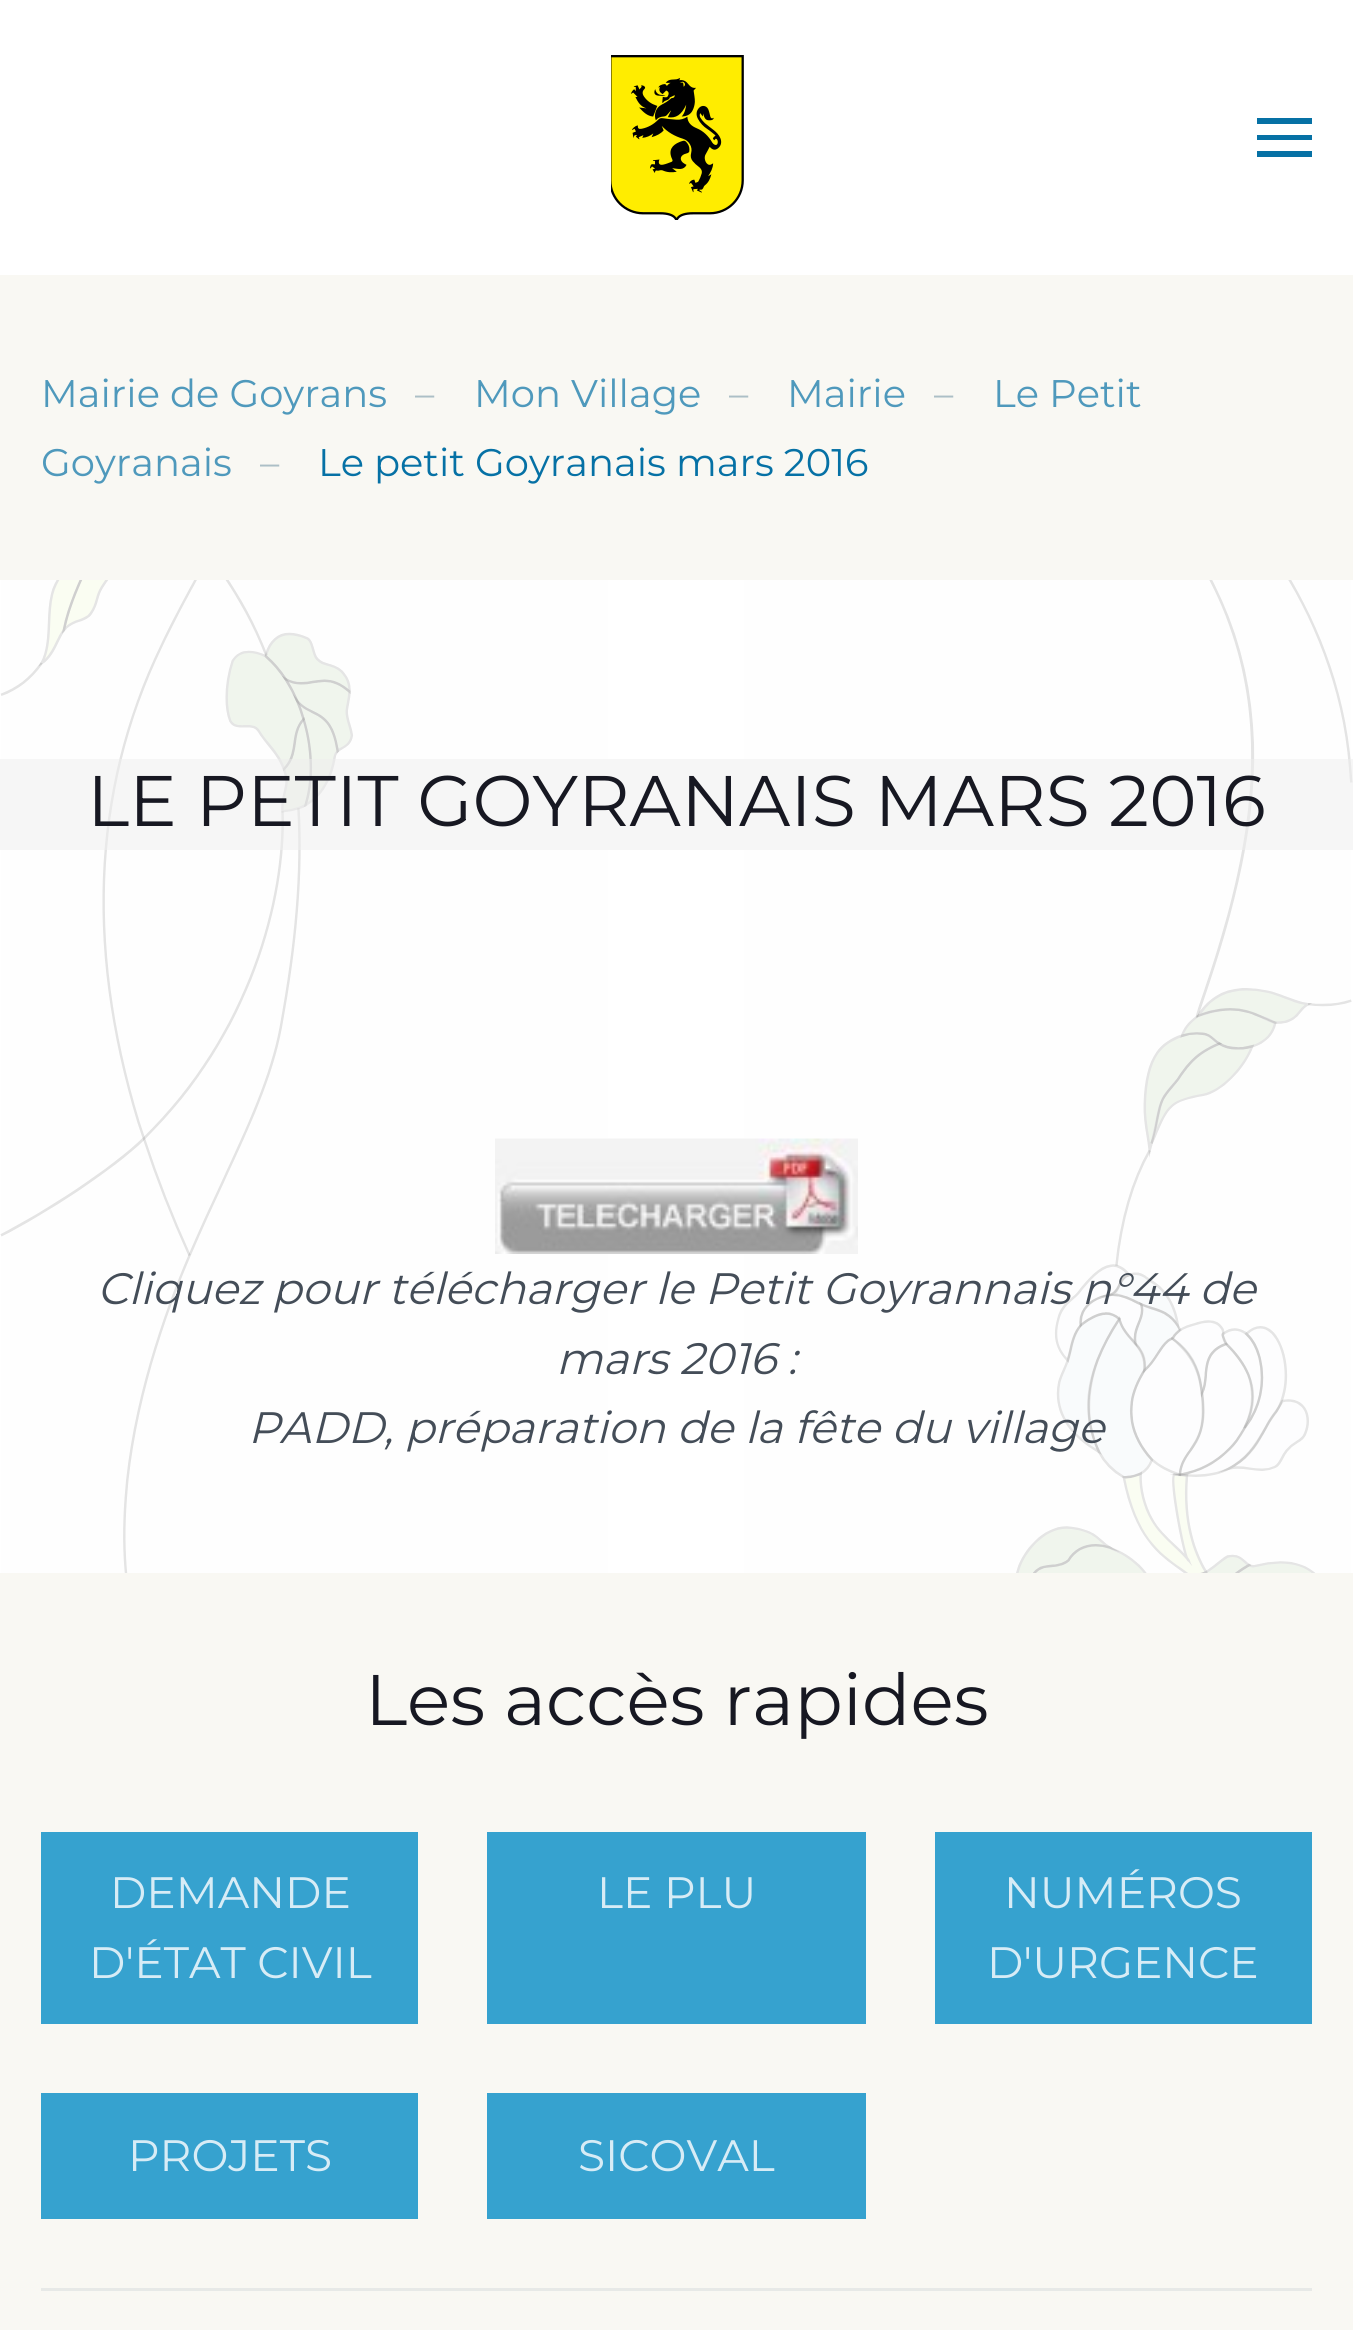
#include <cairo.h>
#include <math.h>
#include <stddef.h>


static void picture(cairo_t *cr, const char *path, double x, double y, double w, double h) {
    cairo_surface_t *image = cairo_image_surface_create_from_png(path);
    cairo_save(cr);
    cairo_set_source_surface(cr, image, x, y);
    cairo_rectangle(cr, x, y, w, h);
    cairo_fill(cr);
    cairo_restore(cr);
    cairo_surface_destroy(image);
}

int main(void) {
    cairo_surface_t *surface = cairo_image_surface_create(CAIRO_FORMAT_RGB24, 1353, 2330);
    cairo_t *cr = cairo_create(surface);
    cairo_font_options_t *options = cairo_font_options_create();
    cairo_font_options_set_hint_metrics(options, CAIRO_HINT_METRICS_OFF);
    cairo_font_options_set_hint_style(options, CAIRO_HINT_STYLE_NONE);
    cairo_set_font_options(cr, options);
    cairo_set_miter_limit(cr, 4);
    cairo_set_source_rgb(cr, 1, 1, 1);
    cairo_paint(cr);
    picture(cr, "img1.png", 0, 580, 1353, 993);
    picture(cr, "img2.png", 611, 55, 133, 165);
    cairo_set_source_rgb(cr, 0.024, 0.443, 0.647);
    cairo_rectangle(cr, 1257, 118, 55, 6);
    cairo_fill(cr);
    cairo_rectangle(cr, 1257, 135, 55, 5);
    cairo_fill(cr);
    cairo_rectangle(cr, 1257, 151, 55, 6);
    cairo_fill(cr);
    cairo_set_source_rgb(cr, 0.973, 0.969, 0.953);
    cairo_rectangle(cr, 0, 275, 1353, 305);
    cairo_fill(cr);
    cairo_select_font_face(cr, "Montserrat Thin", CAIRO_FONT_SLANT_NORMAL, CAIRO_FONT_WEIGHT_NORMAL);
    cairo_set_font_size(cr, 38.5);
    cairo_set_source_rgb(cr, 0.675, 0.749, 0.776);
    cairo_move_to(cr, 934, 407);
    cairo_show_text(cr, "–");
    cairo_set_source_rgb(cr, 0.31, 0.6, 0.737);
    cairo_move_to(cr, 993, 407);
    cairo_show_text(cr, "Le Petit");
    cairo_move_to(cr, 41, 476);
    cairo_show_text(cr, "Goyranais");
    cairo_move_to(cr, 41, 407);
    cairo_show_text(cr, "Mairie de Goyrans");
    cairo_set_source_rgb(cr, 0.675, 0.749, 0.776);
    cairo_move_to(cr, 415, 407);
    cairo_show_text(cr, "–");
    cairo_set_source_rgb(cr, 0.31, 0.6, 0.737);
    cairo_move_to(cr, 474, 407);
    cairo_show_text(cr, "Mon Village");
    cairo_set_source_rgb(cr, 0.675, 0.749, 0.776);
    cairo_move_to(cr, 729, 407);
    cairo_show_text(cr, "–");
    cairo_set_source_rgb(cr, 0.31, 0.6, 0.737);
    cairo_move_to(cr, 787, 407);
    cairo_show_text(cr, "Mairie");
    cairo_set_source_rgb(cr, 0.675, 0.749, 0.776);
    cairo_move_to(cr, 260, 476);
    cairo_show_text(cr, "–");
    cairo_set_source_rgb(cr, 0.024, 0.443, 0.647);
    cairo_move_to(cr, 318, 476);
    cairo_show_text(cr, "Le petit Goyranais mars 2016");
    cairo_set_source_rgba(cr, 0.937, 0.937, 0.937, 0.5);
    cairo_rectangle(cr, 0, 759, 1353, 91);
    cairo_fill(cr);
    cairo_set_font_size(cr, 71.5);
    cairo_set_source_rgb(cr, 0.09, 0.094, 0.133);
    cairo_move_to(cr, 87, 826);
    cairo_show_text(cr, "LE PETIT GOYRANAIS MARS 2016");
    picture(cr, "img3.png", 495, 1138, 363, 116);
    cairo_select_font_face(cr, "Montserrat Thin", CAIRO_FONT_SLANT_ITALIC, CAIRO_FONT_WEIGHT_NORMAL);
    cairo_set_font_size(cr, 44);
    cairo_set_source_rgb(cr, 0.267, 0.302, 0.345);
    cairo_move_to(cr, 97, 1304);
    cairo_show_text(cr, "Cliquez pour télécharger le Petit Goyrannais n°44 de");
    cairo_move_to(cr, 556, 1374);
    cairo_show_text(cr, "mars 2016 :");
    cairo_move_to(cr, 248, 1443);
    cairo_show_text(cr, "PADD, préparation de la fête du village");
    cairo_set_source_rgb(cr, 0.973, 0.969, 0.953);
    cairo_rectangle(cr, 0, 1573, 1353, 757);
    cairo_fill(cr);
    cairo_select_font_face(cr, "Montserrat Thin", CAIRO_FONT_SLANT_NORMAL, CAIRO_FONT_WEIGHT_NORMAL);
    cairo_set_font_size(cr, 71.5);
    cairo_set_source_rgb(cr, 0.09, 0.094, 0.133);
    cairo_move_to(cr, 365, 1725);
    cairo_show_text(cr, "Les accès rapides");
    cairo_set_source_rgb(cr, 0.212, 0.635, 0.812);
    cairo_rectangle(cr, 41, 1832, 377, 192);
    cairo_fill(cr);
    cairo_set_font_size(cr, 44);
    cairo_set_source_rgb(cr, 0.843, 0.925, 0.961);
    cairo_move_to(cr, 110, 1908);
    cairo_show_text(cr, "DEMANDE");
    cairo_move_to(cr, 89, 1978);
    cairo_show_text(cr, "D'ÉTAT CIVIL");
    cairo_set_source_rgb(cr, 0.212, 0.635, 0.812);
    cairo_rectangle(cr, 487, 1832, 379, 192);
    cairo_fill(cr);
    cairo_set_source_rgb(cr, 0.843, 0.925, 0.961);
    cairo_move_to(cr, 597, 1908);
    cairo_show_text(cr, "LE PLU");
    cairo_set_source_rgb(cr, 0.212, 0.635, 0.812);
    cairo_rectangle(cr, 935, 1832, 377, 192);
    cairo_fill(cr);
    cairo_set_source_rgb(cr, 0.843, 0.925, 0.961);
    cairo_move_to(cr, 1004, 1908);
    cairo_show_text(cr, "NUMÉROS");
    cairo_move_to(cr, 987, 1978);
    cairo_show_text(cr, "D'URGENCE");
    cairo_set_source_rgb(cr, 0.212, 0.635, 0.812);
    cairo_rectangle(cr, 41, 2093, 377, 126);
    cairo_fill(cr);
    cairo_set_source_rgb(cr, 0.843, 0.925, 0.961);
    cairo_move_to(cr, 128, 2171);
    cairo_show_text(cr, "PROJETS");
    cairo_set_source_rgb(cr, 0.212, 0.635, 0.812);
    cairo_rectangle(cr, 487, 2093, 379, 126);
    cairo_fill(cr);
    cairo_set_source_rgb(cr, 0.843, 0.925, 0.961);
    cairo_move_to(cr, 578, 2171);
    cairo_show_text(cr, "SICOVAL");
    cairo_set_source_rgb(cr, 0.906, 0.914, 0.906);
    cairo_rectangle(cr, 41, 2288, 1271, 3);
    cairo_fill(cr);
    cairo_surface_write_to_png(surface, "page.png");
    cairo_font_options_destroy(options);
    cairo_destroy(cr);
    cairo_surface_destroy(surface);
    return 0;
}
